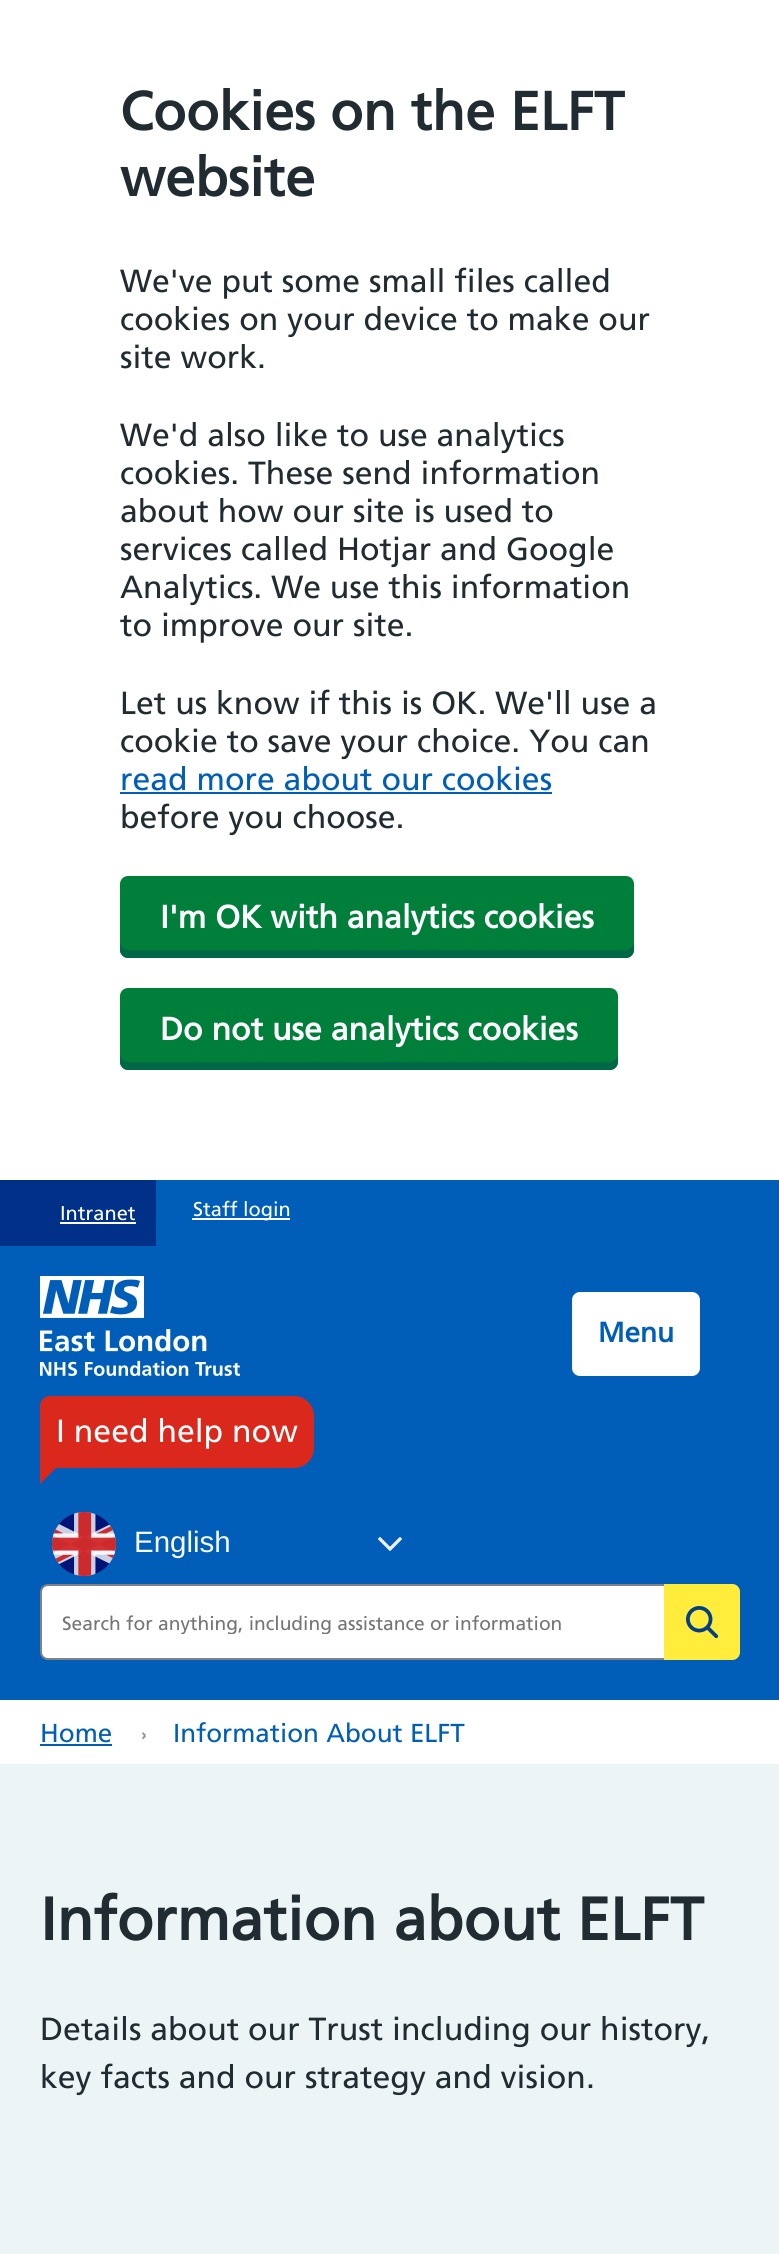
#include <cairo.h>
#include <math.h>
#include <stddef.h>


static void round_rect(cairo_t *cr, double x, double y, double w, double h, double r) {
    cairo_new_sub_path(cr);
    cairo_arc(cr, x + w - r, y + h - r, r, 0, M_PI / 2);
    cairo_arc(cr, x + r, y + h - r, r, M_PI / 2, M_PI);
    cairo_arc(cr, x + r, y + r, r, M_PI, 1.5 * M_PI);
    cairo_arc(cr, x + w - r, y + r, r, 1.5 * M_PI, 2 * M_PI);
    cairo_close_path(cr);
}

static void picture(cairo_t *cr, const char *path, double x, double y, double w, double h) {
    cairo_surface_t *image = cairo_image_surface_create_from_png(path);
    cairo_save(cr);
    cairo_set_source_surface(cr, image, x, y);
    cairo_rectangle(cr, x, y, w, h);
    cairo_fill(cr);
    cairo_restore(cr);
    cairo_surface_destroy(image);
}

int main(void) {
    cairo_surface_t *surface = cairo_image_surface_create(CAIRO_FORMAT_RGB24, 779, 2254);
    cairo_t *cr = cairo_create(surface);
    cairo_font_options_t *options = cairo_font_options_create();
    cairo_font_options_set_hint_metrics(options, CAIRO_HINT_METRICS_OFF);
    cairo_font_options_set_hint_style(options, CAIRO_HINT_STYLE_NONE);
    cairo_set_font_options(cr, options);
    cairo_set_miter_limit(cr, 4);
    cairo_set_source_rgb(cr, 1, 1, 1);
    cairo_paint(cr);
    cairo_select_font_face(cr, "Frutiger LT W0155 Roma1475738", CAIRO_FONT_SLANT_NORMAL, CAIRO_FONT_WEIGHT_BOLD);
    cairo_set_font_size(cr, 54);
    cairo_set_source_rgb(cr, 0.129, 0.169, 0.196);
    cairo_move_to(cr, 120, 130);
    cairo_show_text(cr, "Cookies on the ELFT");
    cairo_move_to(cr, 120, 196);
    cairo_show_text(cr, "website");
    cairo_select_font_face(cr, "Frutiger LT W0155 Roma1475738", CAIRO_FONT_SLANT_NORMAL, CAIRO_FONT_WEIGHT_NORMAL);
    cairo_set_font_size(cr, 32);
    cairo_move_to(cr, 120, 292);
    cairo_show_text(cr, "We've put some small files called");
    cairo_move_to(cr, 120, 330);
    cairo_show_text(cr, "cookies on your device to make our");
    cairo_move_to(cr, 120, 368);
    cairo_show_text(cr, "site work.");
    cairo_move_to(cr, 120, 446);
    cairo_show_text(cr, "We'd also like to use analytics");
    cairo_move_to(cr, 120, 484);
    cairo_show_text(cr, "cookies. These send information");
    cairo_move_to(cr, 120, 522);
    cairo_show_text(cr, "about how our site is used to");
    cairo_move_to(cr, 120, 560);
    cairo_show_text(cr, "services called Hotjar and Google");
    cairo_move_to(cr, 120, 598);
    cairo_show_text(cr, "Analytics. We use this information");
    cairo_move_to(cr, 120, 636);
    cairo_show_text(cr, "to improve our site.");
    cairo_move_to(cr, 120, 714);
    cairo_show_text(cr, "Let us know if this is OK. We'll use a");
    cairo_move_to(cr, 120, 752);
    cairo_show_text(cr, "cookie to save your choice. You can");
    cairo_set_source_rgb(cr, 0, 0.369, 0.722);
    cairo_move_to(cr, 120, 790);
    cairo_show_text(cr, "read more about our cookies");
    cairo_rectangle(cr, 120, 792, 432, 2);
    cairo_fill(cr);
    cairo_set_source_rgb(cr, 0.129, 0.169, 0.196);
    cairo_move_to(cr, 120, 828);
    cairo_show_text(cr, "before you choose.");
    cairo_set_source_rgb(cr, 0, 0.498, 0.231);
    round_rect(cr, 120, 876, 514, 82, 8);
    cairo_fill(cr);
    cairo_set_source_rgb(cr, 0, 0.404, 0.278);
    cairo_new_path(cr);
    cairo_move_to(cr, 120, 942);
    cairo_line_to(cr, 120, 950);
    cairo_curve_to(cr, 120, 954, 124, 958, 128, 958);
    cairo_line_to(cr, 626, 958);
    cairo_curve_to(cr, 630, 958, 634, 954, 634, 950);
    cairo_line_to(cr, 634, 942);
    cairo_curve_to(cr, 634, 946, 630, 950, 626, 950);
    cairo_line_to(cr, 128, 950);
    cairo_curve_to(cr, 124, 950, 120, 946, 120, 942);
    cairo_close_path(cr);
    cairo_fill(cr);
    cairo_select_font_face(cr, "Frutiger LT W0155 Roma1475738", CAIRO_FONT_SLANT_NORMAL, CAIRO_FONT_WEIGHT_BOLD);
    cairo_set_source_rgb(cr, 1, 1, 1);
    cairo_move_to(cr, 160, 928);
    cairo_show_text(cr, "I'm OK with analytics cookies");
    cairo_set_source_rgb(cr, 0, 0.498, 0.231);
    round_rect(cr, 120, 988, 498, 82, 8);
    cairo_fill(cr);
    cairo_set_source_rgb(cr, 0, 0.404, 0.278);
    cairo_new_path(cr);
    cairo_move_to(cr, 120, 1054);
    cairo_line_to(cr, 120, 1062);
    cairo_curve_to(cr, 120, 1066, 124, 1070, 128, 1070);
    cairo_line_to(cr, 610, 1070);
    cairo_curve_to(cr, 614, 1070, 618, 1066, 618, 1062);
    cairo_line_to(cr, 618, 1054);
    cairo_curve_to(cr, 618, 1058, 614, 1062, 610, 1062);
    cairo_line_to(cr, 128, 1062);
    cairo_curve_to(cr, 124, 1062, 120, 1058, 120, 1054);
    cairo_close_path(cr);
    cairo_fill(cr);
    cairo_set_source_rgb(cr, 1, 1, 1);
    cairo_move_to(cr, 160, 1040);
    cairo_show_text(cr, "Do not use analytics cookies");
    cairo_set_source_rgb(cr, 0.929, 0.957, 0.961);
    cairo_rectangle(cr, 0, 1764, 779, 490);
    cairo_fill(cr);
    cairo_set_source_rgb(cr, 0, 0.369, 0.722);
    cairo_rectangle(cr, 0, 1246, 779, 454);
    cairo_fill(cr);
    cairo_set_source_rgb(cr, 0, 0.188, 0.529);
    cairo_rectangle(cr, 0, 1180, 156, 66);
    cairo_fill(cr);
    cairo_select_font_face(cr, "Frutiger LT W0155 Roma1475738", CAIRO_FONT_SLANT_NORMAL, CAIRO_FONT_WEIGHT_NORMAL);
    cairo_set_font_size(cr, 20);
    cairo_set_source_rgb(cr, 1, 1, 1);
    cairo_move_to(cr, 60, 1220);
    cairo_show_text(cr, "Intranet");
    cairo_rectangle(cr, 60, 1222, 76, 2);
    cairo_fill(cr);
    cairo_set_source_rgb(cr, 0, 0.369, 0.722);
    cairo_rectangle(cr, 156, 1180, 623, 66);
    cairo_fill(cr);
    cairo_set_source_rgb(cr, 1, 1, 1);
    cairo_rectangle(cr, 192, 1218, 98, 2);
    cairo_fill(cr);
    cairo_move_to(cr, 193, 1216);
    cairo_show_text(cr, "Staff login");
    picture(cr, "img1.png", 40, 1276, 200, 100);
    cairo_set_source_rgb(cr, 0.855, 0.161, 0.11);
    cairo_new_path(cr);
    cairo_move_to(cr, 50, 1396);
    cairo_line_to(cr, 294, 1396);
    cairo_curve_to(cr, 305, 1396, 314, 1405, 314, 1416);
    cairo_line_to(cr, 314, 1448);
    cairo_curve_to(cr, 314, 1459, 305, 1468, 294, 1468);
    cairo_line_to(cr, 40, 1468);
    cairo_line_to(cr, 40, 1406);
    cairo_curve_to(cr, 40, 1400.5, 44.5, 1396, 50, 1396);
    cairo_close_path(cr);
    cairo_fill(cr);
    cairo_set_font_size(cr, 32);
    cairo_set_source_rgb(cr, 1, 1, 1);
    cairo_move_to(cr, 56, 1442);
    cairo_show_text(cr, "I need help now");
    cairo_set_source_rgb(cr, 0.855, 0.161, 0.11);
    cairo_new_path(cr);
    cairo_move_to(cr, 40, 1468);
    cairo_line_to(cr, 56, 1468);
    cairo_line_to(cr, 40, 1484);
    cairo_close_path(cr);
    cairo_fill(cr);
    picture(cr, "img2.png", 52, 1512, 64, 64);
    cairo_select_font_face(cr, "Liberation Sans", CAIRO_FONT_SLANT_NORMAL, CAIRO_FONT_WEIGHT_NORMAL);
    cairo_set_font_size(cr, 29.5);
    cairo_set_source_rgb(cr, 0.969, 0.969, 0.969);
    cairo_move_to(cr, 134, 1552);
    cairo_show_text(cr, "English");
    picture(cr, "img3.png", 378, 1537, 24, 14);
    cairo_set_source_rgb(cr, 1, 1, 1);
    round_rect(cr, 41, 1585, 698, 74, 7);
    cairo_fill_preserve(cr);
    cairo_set_source_rgb(cr, 0.51, 0.51, 0.51);
    cairo_stroke(cr);
    cairo_save(cr);
    cairo_rectangle(cr, 62, 1612, 656, 22);
    cairo_clip(cr);
    cairo_select_font_face(cr, "Frutiger LT W0155 Roma1475738", CAIRO_FONT_SLANT_NORMAL, CAIRO_FONT_WEIGHT_NORMAL);
    cairo_set_font_size(cr, 19.2);
    cairo_set_source_rgb(cr, 0.459, 0.459, 0.459);
    cairo_move_to(cr, 62, 1630);
    cairo_show_text(cr, "Search for anything, including assistance or information");
    cairo_restore(cr);
    cairo_set_source_rgb(cr, 1, 0.922, 0.231);
    cairo_new_path(cr);
    cairo_move_to(cr, 664, 1584);
    cairo_line_to(cr, 732, 1584);
    cairo_curve_to(cr, 736.5, 1584, 740, 1587.5, 740, 1592);
    cairo_line_to(cr, 740, 1652);
    cairo_curve_to(cr, 740, 1656.5, 736.5, 1660, 732, 1660);
    cairo_line_to(cr, 664, 1660);
    cairo_close_path(cr);
    cairo_fill(cr);
    picture(cr, "img4.png", 686, 1606, 33, 33);
    cairo_set_source_rgb(cr, 1, 1, 1);
    round_rect(cr, 573, 1293, 126, 82, 7);
    cairo_fill_preserve(cr);
    cairo_stroke(cr);
    cairo_select_font_face(cr, "Frutiger LT W0155 Roma1475738", CAIRO_FONT_SLANT_NORMAL, CAIRO_FONT_WEIGHT_BOLD);
    cairo_set_font_size(cr, 28);
    cairo_set_source_rgb(cr, 0, 0.369, 0.722);
    cairo_move_to(cr, 598, 1342);
    cairo_show_text(cr, "Menu");
    cairo_select_font_face(cr, "Frutiger LT W0155 Roma1475738", CAIRO_FONT_SLANT_NORMAL, CAIRO_FONT_WEIGHT_NORMAL);
    cairo_set_font_size(cr, 26);
    cairo_move_to(cr, 40, 1742);
    cairo_show_text(cr, "Home");
    cairo_rectangle(cr, 40, 1744, 72, 2);
    cairo_fill(cr);
    cairo_set_source_rgb(cr, 0.522, 0.592, 0.639);
    cairo_new_path(cr);
    cairo_move_to(cr, 142, 1733.5);
    cairo_line_to(cr, 143, 1732);
    cairo_line_to(cr, 146, 1735);
    cairo_line_to(cr, 144.5, 1736.5);
    cairo_close_path(cr);
    cairo_fill(cr);
    cairo_new_path(cr);
    cairo_move_to(cr, 142, 1738);
    cairo_line_to(cr, 144.5, 1735);
    cairo_line_to(cr, 146, 1736.5);
    cairo_line_to(cr, 143, 1739.5);
    cairo_close_path(cr);
    cairo_fill(cr);
    cairo_set_source_rgb(cr, 0, 0.369, 0.722);
    cairo_move_to(cr, 173, 1742);
    cairo_show_text(cr, "Information About ELFT");
    cairo_select_font_face(cr, "Frutiger LT W0155 Roma1475738", CAIRO_FONT_SLANT_NORMAL, CAIRO_FONT_WEIGHT_BOLD);
    cairo_set_font_size(cr, 60);
    cairo_set_source_rgb(cr, 0.129, 0.169, 0.196);
    cairo_move_to(cr, 40, 1940);
    cairo_show_text(cr, "Information about ELFT");
    cairo_select_font_face(cr, "Frutiger LT W0155 Roma1475738", CAIRO_FONT_SLANT_NORMAL, CAIRO_FONT_WEIGHT_NORMAL);
    cairo_set_font_size(cr, 32);
    cairo_move_to(cr, 40, 2040);
    cairo_show_text(cr, "Details about our Trust including our history,");
    cairo_move_to(cr, 40, 2088);
    cairo_show_text(cr, "key facts and our strategy and vision.");
    cairo_surface_write_to_png(surface, "page.png");
    cairo_font_options_destroy(options);
    cairo_destroy(cr);
    cairo_surface_destroy(surface);
    return 0;
}
